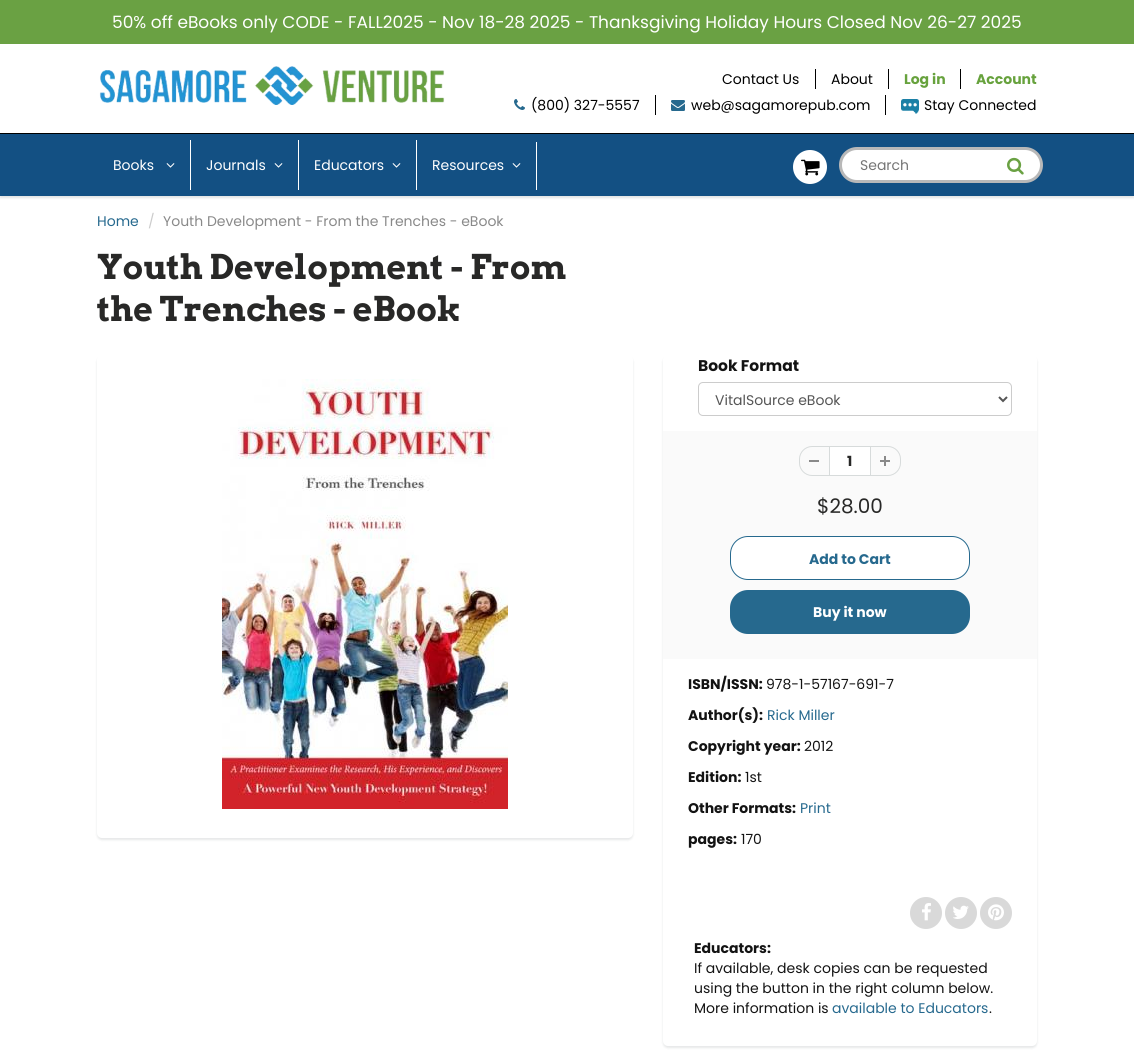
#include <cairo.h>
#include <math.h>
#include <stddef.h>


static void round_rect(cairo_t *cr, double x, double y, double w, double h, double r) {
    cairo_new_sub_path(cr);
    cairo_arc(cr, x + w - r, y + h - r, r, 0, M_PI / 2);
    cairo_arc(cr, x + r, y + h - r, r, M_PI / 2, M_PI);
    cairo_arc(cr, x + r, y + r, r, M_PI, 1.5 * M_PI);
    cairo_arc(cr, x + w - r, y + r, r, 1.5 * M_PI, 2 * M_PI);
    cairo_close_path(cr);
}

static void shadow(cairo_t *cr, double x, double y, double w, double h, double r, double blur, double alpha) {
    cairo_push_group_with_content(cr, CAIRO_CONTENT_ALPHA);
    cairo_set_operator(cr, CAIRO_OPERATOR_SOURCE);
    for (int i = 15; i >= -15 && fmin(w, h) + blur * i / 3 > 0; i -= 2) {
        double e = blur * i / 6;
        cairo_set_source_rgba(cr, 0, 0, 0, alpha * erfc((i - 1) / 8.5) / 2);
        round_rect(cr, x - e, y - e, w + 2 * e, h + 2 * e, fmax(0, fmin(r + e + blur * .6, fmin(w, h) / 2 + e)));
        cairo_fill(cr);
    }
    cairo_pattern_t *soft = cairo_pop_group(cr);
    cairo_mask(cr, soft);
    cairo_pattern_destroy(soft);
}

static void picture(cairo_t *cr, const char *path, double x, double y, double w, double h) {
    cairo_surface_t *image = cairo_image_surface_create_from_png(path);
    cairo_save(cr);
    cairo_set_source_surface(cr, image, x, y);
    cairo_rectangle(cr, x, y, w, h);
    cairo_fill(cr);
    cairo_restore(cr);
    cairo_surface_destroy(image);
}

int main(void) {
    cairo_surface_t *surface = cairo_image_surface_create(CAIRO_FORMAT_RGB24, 1134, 1051);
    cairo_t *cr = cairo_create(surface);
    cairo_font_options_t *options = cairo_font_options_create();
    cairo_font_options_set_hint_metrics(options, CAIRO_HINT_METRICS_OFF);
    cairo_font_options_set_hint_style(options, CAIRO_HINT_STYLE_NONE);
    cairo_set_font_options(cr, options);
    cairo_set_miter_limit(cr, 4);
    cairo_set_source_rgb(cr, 1, 1, 1);
    cairo_paint(cr);
    cairo_set_source_rgb(cr, 0.416, 0.631, 0.263);
    cairo_rectangle(cr, 0, 0, 1134, 44);
    cairo_fill(cr);
    cairo_select_font_face(cr, "Poppins", CAIRO_FONT_SLANT_NORMAL, CAIRO_FONT_WEIGHT_NORMAL);
    cairo_set_font_size(cr, 17);
    cairo_set_source_rgb(cr, 1, 1, 1);
    cairo_move_to(cr, 112, 28);
    cairo_show_text(cr, "50% off eBooks only CODE - FALL2025 - Nov 18-28 2025 - Thanksgiving Holiday Hours Closed Nov 26-27 2025");
    picture(cr, "img1.png", 99, 66, 346, 39);
    cairo_set_font_size(cr, 14);
    cairo_set_source_rgb(cr, 0, 0, 0);
    cairo_move_to(cr, 722, 84);
    cairo_show_text(cr, "Contact Us");
    cairo_rectangle(cr, 815, 69, 1, 20);
    cairo_fill(cr);
    cairo_move_to(cr, 831, 84);
    cairo_show_text(cr, "About");
    cairo_rectangle(cr, 888, 69, 1, 20);
    cairo_fill(cr);
    cairo_select_font_face(cr, "Poppins", CAIRO_FONT_SLANT_NORMAL, CAIRO_FONT_WEIGHT_BOLD);
    cairo_set_source_rgb(cr, 0.404, 0.635, 0.239);
    cairo_move_to(cr, 904, 84);
    cairo_show_text(cr, "Log in");
    cairo_set_source_rgb(cr, 0, 0, 0);
    cairo_rectangle(cr, 960, 69, 1, 20);
    cairo_fill(cr);
    cairo_set_source_rgb(cr, 0.404, 0.635, 0.239);
    cairo_move_to(cr, 976, 84);
    cairo_show_text(cr, "Account");
    picture(cr, "img2.png", 514, 99, 11, 11);
    cairo_select_font_face(cr, "Poppins", CAIRO_FONT_SLANT_NORMAL, CAIRO_FONT_WEIGHT_NORMAL);
    cairo_set_source_rgb(cr, 0, 0, 0);
    cairo_move_to(cr, 531, 110);
    cairo_show_text(cr, "(800) 327-5557");
    cairo_rectangle(cr, 655, 95, 1, 20);
    cairo_fill(cr);
    picture(cr, "img3.png", 671, 100, 14, 11);
    cairo_move_to(cr, 691, 110);
    cairo_show_text(cr, "web@sagamorepub.com");
    cairo_rectangle(cr, 885, 95, 1, 20);
    cairo_fill(cr);
    picture(cr, "img4.png", 901, 99, 18, 15);
    cairo_move_to(cr, 924, 110);
    cairo_show_text(cr, "Stay Connected");
    cairo_set_source_rgb(cr, 0.043, 0.098, 0.11);
    shadow(cr, 0, 135, 1134, 63, 0, 1, 0.12);
    cairo_set_source_rgb(cr, 0.078, 0.314, 0.514);
    cairo_rectangle(cr, 0, 134, 1134, 62);
    cairo_fill(cr);
    cairo_set_source_rgb(cr, 0, 0, 0);
    cairo_rectangle(cr, 0, 133, 1134, 1);
    cairo_fill(cr);
    cairo_set_source_rgb(cr, 1, 1, 1);
    cairo_rectangle(cr, 190, 140, 1, 50);
    cairo_fill(cr);
    cairo_move_to(cr, 113, 170);
    cairo_show_text(cr, "Books");
    picture(cr, "img5.png", 166, 163, 9, 5);
    cairo_rectangle(cr, 298, 140, 1, 50);
    cairo_fill(cr);
    cairo_move_to(cr, 206, 170);
    cairo_show_text(cr, "Journals");
    picture(cr, "img5.png", 274, 163, 9, 5);
    cairo_rectangle(cr, 416, 140, 1, 50);
    cairo_fill(cr);
    cairo_move_to(cr, 314, 170);
    cairo_show_text(cr, "Educators");
    picture(cr, "img5.png", 392, 163, 9, 5);
    cairo_rectangle(cr, 536, 142, 1, 48);
    cairo_fill(cr);
    cairo_move_to(cr, 432, 170);
    cairo_show_text(cr, "Resources");
    picture(cr, "img5.png", 512, 163, 9, 5);
    cairo_arc(cr, 810, 167, 17, 0, 2 * M_PI);
    cairo_fill(cr);
    picture(cr, "img6.png", 801, 159, 19, 17);
    round_rect(cr, 840.5, 148.5, 201, 33, 16.5);
    cairo_fill_preserve(cr);
    cairo_set_source_rgb(cr, 0.722, 0.722, 0.722);
    cairo_set_line_width(cr, 3);
    cairo_stroke(cr);
    cairo_set_source_rgb(cr, 0.459, 0.459, 0.459);
    cairo_move_to(cr, 860, 170);
    cairo_show_text(cr, "Search");
    picture(cr, "img7.png", 1007, 157, 17, 18);
    cairo_set_source_rgb(cr, 0.149, 0.412, 0.557);
    cairo_move_to(cr, 97, 226);
    cairo_show_text(cr, "Home");
    cairo_set_source_rgb(cr, 0.8, 0.8, 0.8);
    cairo_move_to(cr, 148, 226);
    cairo_show_text(cr, "/");
    cairo_set_source_rgb(cr, 0.537, 0.537, 0.537);
    cairo_move_to(cr, 163, 226);
    cairo_show_text(cr, "Youth Development - From the Trenches - eBook");
    cairo_select_font_face(cr, "Arvo", CAIRO_FONT_SLANT_NORMAL, CAIRO_FONT_WEIGHT_BOLD);
    cairo_set_font_size(cr, 34);
    cairo_set_source_rgb(cr, 0.157, 0.157, 0.153);
    cairo_move_to(cr, 97, 279);
    cairo_show_text(cr, "Youth Development - From");
    cairo_move_to(cr, 97, 321);
    cairo_show_text(cr, "the Trenches - eBook");
    cairo_set_source_rgb(cr, 0.043, 0.098, 0.11);
    shadow(cr, 97, 357, 536, 483, 5, 1, 0.1);
    cairo_set_source_rgb(cr, 1, 1, 1);
    round_rect(cr, 97, 355, 536, 483, 5);
    cairo_fill(cr);
    picture(cr, "img8.png", 222, 379, 286, 430);
    cairo_set_source_rgb(cr, 0.043, 0.098, 0.11);
    shadow(cr, 663, 357, 374, 691, 5, 1, 0.1);
    cairo_set_source_rgb(cr, 1, 1, 1);
    round_rect(cr, 663, 355, 374, 691, 5);
    cairo_fill(cr);
    cairo_select_font_face(cr, "Poppins", CAIRO_FONT_SLANT_NORMAL, CAIRO_FONT_WEIGHT_BOLD);
    cairo_set_font_size(cr, 15.5);
    cairo_set_source_rgb(cr, 0.075, 0.075, 0.075);
    cairo_move_to(cr, 698, 371);
    cairo_show_text(cr, "Book Format");
    round_rect(cr, 698.5, 382.5, 313, 33, 4.5);
    cairo_set_source_rgb(cr, 0.8, 0.8, 0.8);
    cairo_set_line_width(cr, 1);
    cairo_stroke(cr);
    cairo_new_path(cr);
    cairo_move_to(cr, 999, 397);
    cairo_line_to(cr, 1003, 401);
    cairo_line_to(cr, 1007, 397);
    cairo_set_source_rgb(cr, 0.333, 0.333, 0.333);
    cairo_set_line_width(cr, 2);
    cairo_stroke(cr);
    cairo_select_font_face(cr, "Poppins", CAIRO_FONT_SLANT_NORMAL, CAIRO_FONT_WEIGHT_NORMAL);
    cairo_set_font_size(cr, 14);
    cairo_move_to(cr, 715, 405);
    cairo_show_text(cr, "VitalSource eBook");
    cairo_set_source_rgb(cr, 0.98, 0.98, 0.98);
    cairo_rectangle(cr, 663, 431, 374, 228);
    cairo_fill(cr);
    cairo_set_source_rgb(cr, 0.537, 0.537, 0.537);
    cairo_rectangle(cr, 809, 460, 10, 2);
    cairo_fill(cr);
    cairo_set_source_rgb(cr, 0.843, 0.859, 0.859);
    cairo_set_fill_rule(cr, CAIRO_FILL_RULE_EVEN_ODD);
    cairo_new_path(cr);
    cairo_move_to(cr, 812, 446);
    cairo_line_to(cr, 829, 446);
    cairo_line_to(cr, 829, 476);
    cairo_line_to(cr, 812, 476);
    cairo_curve_to(cr, 805, 476, 799, 470, 799, 463);
    cairo_line_to(cr, 799, 459);
    cairo_curve_to(cr, 799, 452, 805, 446, 812, 446);
    cairo_close_path(cr);
    cairo_move_to(cr, 812, 447);
    cairo_line_to(cr, 829, 447);
    cairo_line_to(cr, 829, 475);
    cairo_line_to(cr, 812, 475);
    cairo_curve_to(cr, 805.5, 475, 800, 469.5, 800, 463);
    cairo_line_to(cr, 800, 459);
    cairo_curve_to(cr, 800, 452.5, 805.5, 447, 812, 447);
    cairo_close_path(cr);
    cairo_fill(cr);
    cairo_set_source_rgb(cr, 1, 1, 1);
    cairo_rectangle(cr, 829.5, 446.5, 41, 29);
    cairo_fill_preserve(cr);
    cairo_set_source_rgb(cr, 0.843, 0.859, 0.859);
    cairo_set_line_width(cr, 1);
    cairo_stroke(cr);
    cairo_select_font_face(cr, "Poppins", CAIRO_FONT_SLANT_NORMAL, CAIRO_FONT_WEIGHT_BOLD);
    cairo_set_source_rgb(cr, 0.157, 0.157, 0.153);
    cairo_move_to(cr, 847, 466);
    cairo_show_text(cr, "1");
    picture(cr, "img9.png", 880, 456, 10, 10);
    cairo_set_source_rgb(cr, 0.843, 0.859, 0.859);
    cairo_new_path(cr);
    cairo_move_to(cr, 871, 446);
    cairo_line_to(cr, 888, 446);
    cairo_curve_to(cr, 895, 446, 901, 452, 901, 459);
    cairo_line_to(cr, 901, 463);
    cairo_curve_to(cr, 901, 470, 895, 476, 888, 476);
    cairo_line_to(cr, 871, 476);
    cairo_close_path(cr);
    cairo_move_to(cr, 871, 447);
    cairo_line_to(cr, 888, 447);
    cairo_curve_to(cr, 894.5, 447, 900, 452.5, 900, 459);
    cairo_line_to(cr, 900, 463);
    cairo_curve_to(cr, 900, 469.5, 894.5, 475, 888, 475);
    cairo_line_to(cr, 871, 475);
    cairo_close_path(cr);
    cairo_fill(cr);
    cairo_select_font_face(cr, "Poppins", CAIRO_FONT_SLANT_NORMAL, CAIRO_FONT_WEIGHT_NORMAL);
    cairo_set_font_size(cr, 20);
    cairo_set_source_rgb(cr, 0.157, 0.157, 0.153);
    cairo_move_to(cr, 817, 513);
    cairo_show_text(cr, "$28.00");
    cairo_set_source_rgb(cr, 1, 1, 1);
    round_rect(cr, 730.5, 536.5, 239, 43, 17.5);
    cairo_fill_preserve(cr);
    cairo_set_source_rgb(cr, 0.149, 0.412, 0.557);
    cairo_stroke(cr);
    cairo_select_font_face(cr, "Poppins", CAIRO_FONT_SLANT_NORMAL, CAIRO_FONT_WEIGHT_BOLD);
    cairo_set_font_size(cr, 14);
    cairo_move_to(cr, 809, 564);
    cairo_show_text(cr, "Add to Cart");
    round_rect(cr, 730, 590, 240, 44, 18);
    cairo_fill(cr);
    cairo_set_source_rgb(cr, 1, 1, 1);
    cairo_move_to(cr, 813, 617);
    cairo_show_text(cr, "Buy it now");
    cairo_set_source_rgb(cr, 0.075, 0.075, 0.075);
    cairo_move_to(cr, 688, 689);
    cairo_show_text(cr, "ISBN/ISSN:");
    cairo_select_font_face(cr, "Poppins", CAIRO_FONT_SLANT_NORMAL, CAIRO_FONT_WEIGHT_NORMAL);
    cairo_move_to(cr, 766, 689);
    cairo_show_text(cr, "978-1-57167-691-7");
    cairo_select_font_face(cr, "Poppins", CAIRO_FONT_SLANT_NORMAL, CAIRO_FONT_WEIGHT_BOLD);
    cairo_move_to(cr, 688, 720);
    cairo_show_text(cr, "Author(s):");
    cairo_select_font_face(cr, "Poppins", CAIRO_FONT_SLANT_NORMAL, CAIRO_FONT_WEIGHT_NORMAL);
    cairo_set_source_rgb(cr, 0.149, 0.412, 0.557);
    cairo_move_to(cr, 767, 720);
    cairo_show_text(cr, "Rick Miller");
    cairo_select_font_face(cr, "Poppins", CAIRO_FONT_SLANT_NORMAL, CAIRO_FONT_WEIGHT_BOLD);
    cairo_set_source_rgb(cr, 0.075, 0.075, 0.075);
    cairo_move_to(cr, 688, 751);
    cairo_show_text(cr, "Copyright year:");
    cairo_select_font_face(cr, "Poppins", CAIRO_FONT_SLANT_NORMAL, CAIRO_FONT_WEIGHT_NORMAL);
    cairo_move_to(cr, 804, 751);
    cairo_show_text(cr, "2012");
    cairo_select_font_face(cr, "Poppins", CAIRO_FONT_SLANT_NORMAL, CAIRO_FONT_WEIGHT_BOLD);
    cairo_move_to(cr, 688, 782);
    cairo_show_text(cr, "Edition:");
    cairo_select_font_face(cr, "Poppins", CAIRO_FONT_SLANT_NORMAL, CAIRO_FONT_WEIGHT_NORMAL);
    cairo_move_to(cr, 745, 782);
    cairo_show_text(cr, "1st");
    cairo_select_font_face(cr, "Poppins", CAIRO_FONT_SLANT_NORMAL, CAIRO_FONT_WEIGHT_BOLD);
    cairo_move_to(cr, 688, 813);
    cairo_show_text(cr, "Other Formats:");
    cairo_select_font_face(cr, "Poppins", CAIRO_FONT_SLANT_NORMAL, CAIRO_FONT_WEIGHT_NORMAL);
    cairo_set_source_rgb(cr, 0.149, 0.412, 0.557);
    cairo_move_to(cr, 800, 813);
    cairo_show_text(cr, "Print");
    cairo_select_font_face(cr, "Poppins", CAIRO_FONT_SLANT_NORMAL, CAIRO_FONT_WEIGHT_BOLD);
    cairo_set_source_rgb(cr, 0.075, 0.075, 0.075);
    cairo_move_to(cr, 688, 844);
    cairo_show_text(cr, "pages:");
    cairo_select_font_face(cr, "Poppins", CAIRO_FONT_SLANT_NORMAL, CAIRO_FONT_WEIGHT_NORMAL);
    cairo_move_to(cr, 741, 844);
    cairo_show_text(cr, "170");
    cairo_set_source_rgb(cr, 0.851, 0.851, 0.851);
    cairo_new_path(cr);
    cairo_arc(cr, 926, 913, 16, 0, 2 * M_PI);
    cairo_fill(cr);
    picture(cr, "img10.png", 922, 903, 9, 18);
    cairo_arc(cr, 961, 913, 16, 0, 2 * M_PI);
    cairo_fill(cr);
    picture(cr, "img11.png", 953, 905, 16, 14);
    cairo_arc(cr, 996, 913, 16, 0, 2 * M_PI);
    cairo_fill(cr);
    picture(cr, "img12.png", 988, 904, 16, 17);
    cairo_select_font_face(cr, "Poppins", CAIRO_FONT_SLANT_NORMAL, CAIRO_FONT_WEIGHT_BOLD);
    cairo_set_source_rgb(cr, 0.075, 0.075, 0.075);
    cairo_move_to(cr, 694, 953);
    cairo_show_text(cr, "Educators:");
    cairo_select_font_face(cr, "Poppins", CAIRO_FONT_SLANT_NORMAL, CAIRO_FONT_WEIGHT_NORMAL);
    cairo_move_to(cr, 694, 973);
    cairo_show_text(cr, "If available, desk copies can be requested");
    cairo_move_to(cr, 694, 993);
    cairo_show_text(cr, "using the button in the right column below.");
    cairo_move_to(cr, 694, 1013);
    cairo_show_text(cr, "More information is");
    cairo_set_source_rgb(cr, 0.149, 0.412, 0.557);
    cairo_move_to(cr, 832, 1013);
    cairo_show_text(cr, "available to Educators");
    cairo_set_source_rgb(cr, 0.075, 0.075, 0.075);
    cairo_move_to(cr, 989, 1013);
    cairo_show_text(cr, ".");
    cairo_surface_write_to_png(surface, "page.png");
    cairo_font_options_destroy(options);
    cairo_destroy(cr);
    cairo_surface_destroy(surface);
    return 0;
}
